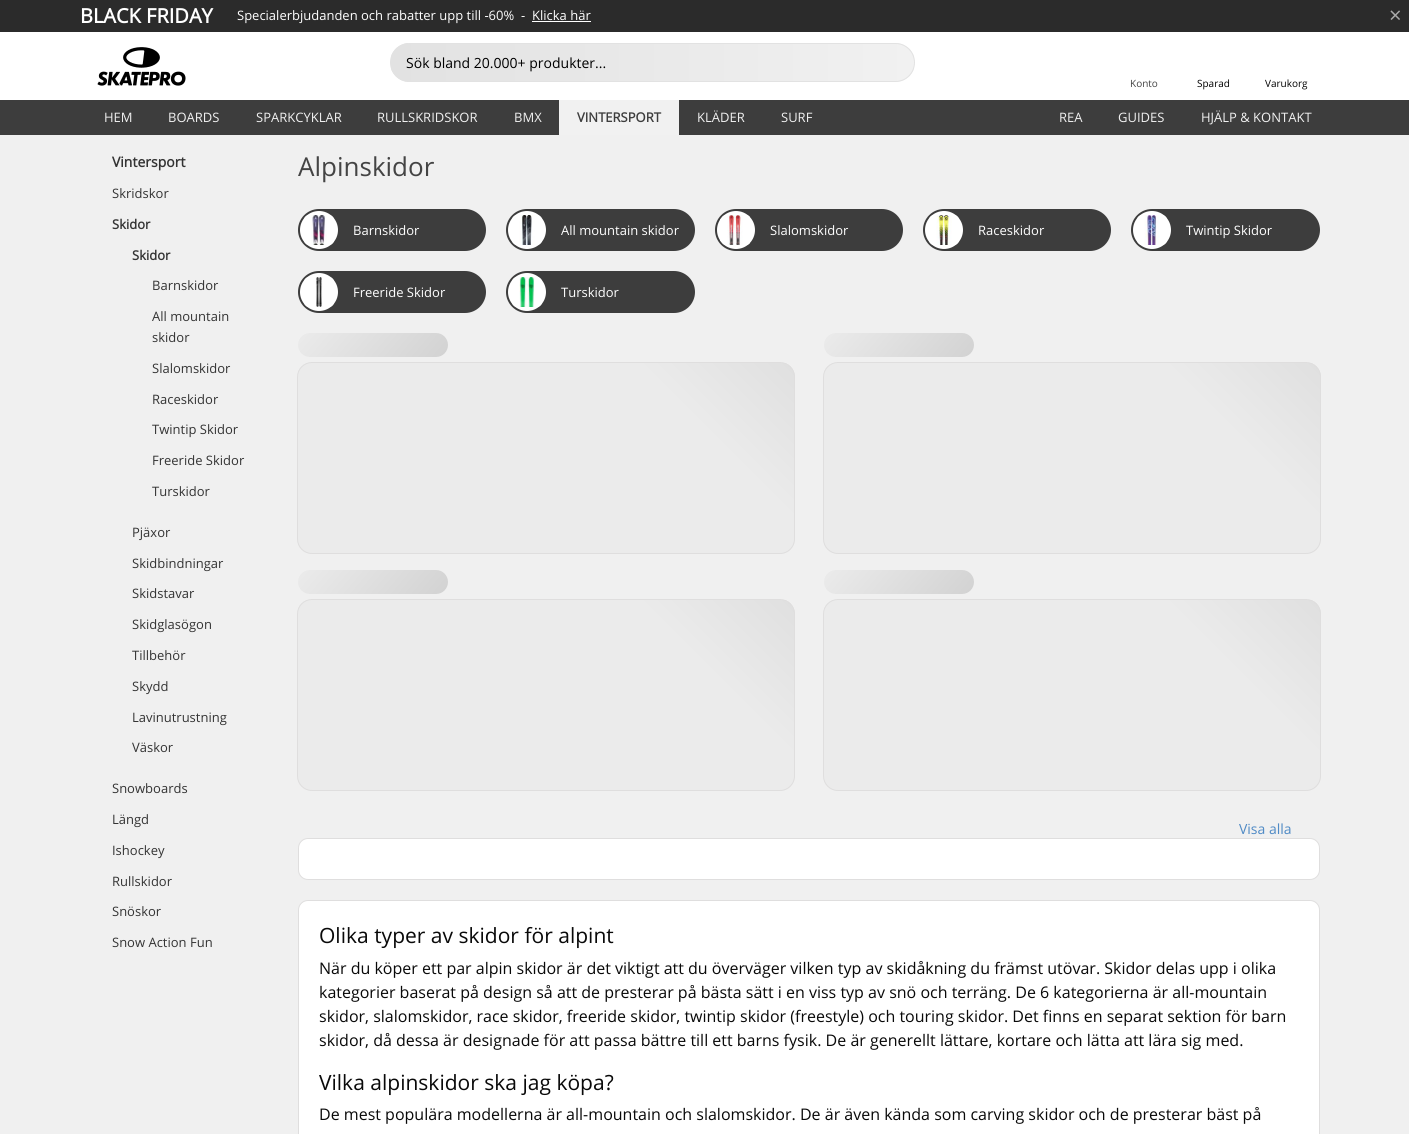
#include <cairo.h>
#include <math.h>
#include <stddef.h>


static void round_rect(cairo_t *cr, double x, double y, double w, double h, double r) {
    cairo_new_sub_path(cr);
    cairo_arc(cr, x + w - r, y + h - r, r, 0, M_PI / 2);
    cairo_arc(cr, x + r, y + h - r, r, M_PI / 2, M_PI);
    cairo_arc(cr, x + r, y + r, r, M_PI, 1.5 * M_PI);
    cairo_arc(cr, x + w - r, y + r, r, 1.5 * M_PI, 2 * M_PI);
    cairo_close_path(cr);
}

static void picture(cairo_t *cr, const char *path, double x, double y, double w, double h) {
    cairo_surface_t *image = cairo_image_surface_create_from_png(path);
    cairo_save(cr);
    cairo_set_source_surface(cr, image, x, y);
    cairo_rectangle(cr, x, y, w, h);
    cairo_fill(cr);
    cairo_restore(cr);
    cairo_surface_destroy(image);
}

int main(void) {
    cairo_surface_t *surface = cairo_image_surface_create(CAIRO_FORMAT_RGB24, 1409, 1134);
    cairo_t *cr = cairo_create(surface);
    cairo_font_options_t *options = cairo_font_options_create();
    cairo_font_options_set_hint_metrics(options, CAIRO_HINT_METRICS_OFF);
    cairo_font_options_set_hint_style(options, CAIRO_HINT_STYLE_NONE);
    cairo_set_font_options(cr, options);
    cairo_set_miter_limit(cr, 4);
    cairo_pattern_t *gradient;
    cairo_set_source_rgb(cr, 0.239, 0.239, 0.239);
    cairo_paint(cr);
    cairo_set_source_rgb(cr, 0.169, 0.169, 0.169);
    cairo_rectangle(cr, 0, 0, 1409, 32);
    cairo_fill(cr);
    cairo_select_font_face(cr, "Open Sans", CAIRO_FONT_SLANT_NORMAL, CAIRO_FONT_WEIGHT_BOLD);
    cairo_set_font_size(cr, 20);
    cairo_set_source_rgb(cr, 1, 1, 1);
    cairo_move_to(cr, 80, 23);
    cairo_show_text(cr, "BLACK FRIDAY");
    cairo_select_font_face(cr, "Open Sans", CAIRO_FONT_SLANT_NORMAL, CAIRO_FONT_WEIGHT_NORMAL);
    cairo_set_font_size(cr, 13);
    cairo_move_to(cr, 237, 20);
    cairo_show_text(cr, "Specialerbjudanden och rabatter upp till -60%  -");
    cairo_move_to(cr, 532, 20);
    cairo_show_text(cr, "Klicka här");
    cairo_rectangle(cr, 532, 21, 59, 1);
    cairo_fill(cr);
    cairo_set_font_size(cr, 22);
    cairo_set_source_rgb(cr, 0.667, 0.667, 0.667);
    cairo_move_to(cr, 1389, 23);
    cairo_show_text(cr, "×");
    cairo_set_source_rgb(cr, 1, 1, 1);
    cairo_rectangle(cr, 0, 32, 1409, 68);
    cairo_fill(cr);
    picture(cr, "img1.png", 97, 47, 89, 39);
    cairo_save(cr);
    round_rect(cr, 390, 43, 525, 39, 19.5);
    cairo_clip(cr);
    gradient = cairo_pattern_create_linear(391, 63, 914, 62);
    cairo_pattern_add_color_stop_rgba(gradient, 0, 0.886, 0.886, 0.886, 1);
    cairo_pattern_add_color_stop_rgba(gradient, 1, 0.945, 0.945, 0.945, 1);
    cairo_set_source(cr, gradient);
    cairo_pattern_destroy(gradient);
    cairo_rectangle(cr, 391, 43, 523, 39);
    cairo_fill(cr);
    cairo_restore(cr);
    round_rect(cr, 390.5, 43.5, 524, 38, 19);
    cairo_set_source_rgb(cr, 0.886, 0.886, 0.886);
    cairo_set_line_width(cr, 1);
    cairo_stroke(cr);
    cairo_set_font_size(cr, 14);
    cairo_set_source_rgb(cr, 0, 0, 0);
    cairo_move_to(cr, 406, 68);
    cairo_show_text(cr, "Sök bland 20.000+ produkter...");
    cairo_set_font_size(cr, 10);
    cairo_set_source_rgb(cr, 0.267, 0.267, 0.267);
    cairo_move_to(cr, 1130, 87);
    cairo_show_text(cr, "Konto");
    cairo_set_source_rgb(cr, 0, 0, 0);
    cairo_move_to(cr, 1197, 87);
    cairo_show_text(cr, "Sparad");
    cairo_move_to(cr, 1265, 87);
    cairo_show_text(cr, "Varukorg");
    cairo_set_font_size(cr, 13);
    cairo_set_source_rgb(cr, 0.945, 0.945, 0.945);
    cairo_move_to(cr, 104, 122);
    cairo_show_text(cr, "HEM");
    cairo_move_to(cr, 168, 122);
    cairo_show_text(cr, "BOARDS");
    cairo_move_to(cr, 256, 122);
    cairo_show_text(cr, "SPARKCYKLAR");
    cairo_move_to(cr, 377, 122);
    cairo_show_text(cr, "RULLSKRIDSKOR");
    cairo_move_to(cr, 514, 122);
    cairo_show_text(cr, "BMX");
    cairo_rectangle(cr, 559, 100, 120, 35);
    cairo_fill(cr);
    cairo_select_font_face(cr, "Open Sans", CAIRO_FONT_SLANT_NORMAL, CAIRO_FONT_WEIGHT_BOLD);
    cairo_set_source_rgb(cr, 0.239, 0.239, 0.239);
    cairo_move_to(cr, 577, 122);
    cairo_show_text(cr, "VINTERSPORT");
    cairo_select_font_face(cr, "Open Sans", CAIRO_FONT_SLANT_NORMAL, CAIRO_FONT_WEIGHT_NORMAL);
    cairo_set_source_rgb(cr, 0.945, 0.945, 0.945);
    cairo_move_to(cr, 697, 122);
    cairo_show_text(cr, "KLÄDER");
    cairo_move_to(cr, 781, 122);
    cairo_show_text(cr, "SURF");
    cairo_move_to(cr, 1059, 122);
    cairo_show_text(cr, "REA");
    cairo_move_to(cr, 1118, 122);
    cairo_show_text(cr, "GUIDES");
    cairo_move_to(cr, 1201, 122);
    cairo_show_text(cr, "HJÄLP & KONTAKT");
    cairo_set_source_rgb(cr, 0.941, 0.941, 0.941);
    cairo_rectangle(cr, 0, 135, 1409, 999);
    cairo_fill(cr);
    cairo_select_font_face(cr, "Open Sans", CAIRO_FONT_SLANT_NORMAL, CAIRO_FONT_WEIGHT_BOLD);
    cairo_set_font_size(cr, 14);
    cairo_set_source_rgb(cr, 0.2, 0.2, 0.2);
    cairo_move_to(cr, 112, 167);
    cairo_show_text(cr, "Vintersport");
    cairo_select_font_face(cr, "Open Sans", CAIRO_FONT_SLANT_NORMAL, CAIRO_FONT_WEIGHT_NORMAL);
    cairo_set_font_size(cr, 13);
    cairo_move_to(cr, 112, 198);
    cairo_show_text(cr, "Skridskor");
    cairo_select_font_face(cr, "Open Sans", CAIRO_FONT_SLANT_NORMAL, CAIRO_FONT_WEIGHT_BOLD);
    cairo_move_to(cr, 112, 229);
    cairo_show_text(cr, "Skidor");
    cairo_move_to(cr, 132, 260);
    cairo_show_text(cr, "Skidor");
    cairo_select_font_face(cr, "Open Sans", CAIRO_FONT_SLANT_NORMAL, CAIRO_FONT_WEIGHT_NORMAL);
    cairo_move_to(cr, 152, 290);
    cairo_show_text(cr, "Barnskidor");
    cairo_move_to(cr, 152, 321);
    cairo_show_text(cr, "All mountain");
    cairo_move_to(cr, 152, 342);
    cairo_show_text(cr, "skidor");
    cairo_move_to(cr, 152, 373);
    cairo_show_text(cr, "Slalomskidor");
    cairo_move_to(cr, 152, 404);
    cairo_show_text(cr, "Raceskidor");
    cairo_move_to(cr, 152, 434);
    cairo_show_text(cr, "Twintip Skidor");
    cairo_move_to(cr, 152, 465);
    cairo_show_text(cr, "Freeride Skidor");
    cairo_move_to(cr, 152, 496);
    cairo_show_text(cr, "Turskidor");
    cairo_move_to(cr, 132, 537);
    cairo_show_text(cr, "Pjäxor");
    cairo_move_to(cr, 132, 568);
    cairo_show_text(cr, "Skidbindningar");
    cairo_move_to(cr, 132, 598);
    cairo_show_text(cr, "Skidstavar");
    cairo_move_to(cr, 132, 629);
    cairo_show_text(cr, "Skidglasögon");
    cairo_move_to(cr, 132, 660);
    cairo_show_text(cr, "Tillbehör");
    cairo_move_to(cr, 132, 691);
    cairo_show_text(cr, "Skydd");
    cairo_move_to(cr, 132, 722);
    cairo_show_text(cr, "Lavinutrustning");
    cairo_move_to(cr, 132, 752);
    cairo_show_text(cr, "Väskor");
    cairo_move_to(cr, 112, 793);
    cairo_show_text(cr, "Snowboards");
    cairo_move_to(cr, 112, 824);
    cairo_show_text(cr, "Längd");
    cairo_move_to(cr, 112, 855);
    cairo_show_text(cr, "Ishockey");
    cairo_move_to(cr, 112, 886);
    cairo_show_text(cr, "Rullskidor");
    cairo_move_to(cr, 112, 916);
    cairo_show_text(cr, "Snöskor");
    cairo_move_to(cr, 112, 947);
    cairo_show_text(cr, "Snow Action Fun");
    cairo_set_font_size(cr, 26);
    cairo_set_source_rgb(cr, 0.267, 0.267, 0.267);
    cairo_move_to(cr, 298, 176);
    cairo_show_text(cr, "Alpinskidor");
    cairo_set_source_rgb(cr, 0.239, 0.239, 0.239);
    round_rect(cr, 298, 209, 188, 42, 21);
    cairo_fill(cr);
    cairo_set_source_rgb(cr, 1, 1, 1);
    cairo_arc(cr, 319, 230, 19, 0, 2 * M_PI);
    cairo_fill(cr);
    picture(cr, "img2.png", 304, 215, 30, 30);
    cairo_set_font_size(cr, 13);
    cairo_move_to(cr, 353, 235);
    cairo_show_text(cr, "Barnskidor");
    cairo_set_source_rgb(cr, 0.239, 0.239, 0.239);
    round_rect(cr, 506, 209, 189, 42, 21);
    cairo_fill(cr);
    cairo_set_source_rgb(cr, 1, 1, 1);
    cairo_arc(cr, 527, 230, 19, 0, 2 * M_PI);
    cairo_fill(cr);
    picture(cr, "img3.png", 512, 215, 30, 30);
    cairo_move_to(cr, 561, 235);
    cairo_show_text(cr, "All mountain skidor");
    cairo_set_source_rgb(cr, 0.239, 0.239, 0.239);
    round_rect(cr, 715, 209, 188, 42, 21);
    cairo_fill(cr);
    cairo_set_source_rgb(cr, 1, 1, 1);
    cairo_arc(cr, 736, 230, 19, 0, 2 * M_PI);
    cairo_fill(cr);
    picture(cr, "img4.png", 720, 215, 30, 30);
    cairo_move_to(cr, 770, 235);
    cairo_show_text(cr, "Slalomskidor");
    cairo_set_source_rgb(cr, 0.239, 0.239, 0.239);
    round_rect(cr, 923, 209, 188, 42, 21);
    cairo_fill(cr);
    cairo_set_source_rgb(cr, 1, 1, 1);
    cairo_arc(cr, 944, 230, 19, 0, 2 * M_PI);
    cairo_fill(cr);
    picture(cr, "img5.png", 929, 215, 30, 30);
    cairo_move_to(cr, 978, 235);
    cairo_show_text(cr, "Raceskidor");
    cairo_set_source_rgb(cr, 0.239, 0.239, 0.239);
    round_rect(cr, 1131, 209, 189, 42, 21);
    cairo_fill(cr);
    cairo_set_source_rgb(cr, 1, 1, 1);
    cairo_arc(cr, 1152, 230, 19, 0, 2 * M_PI);
    cairo_fill(cr);
    picture(cr, "img6.png", 1137, 215, 30, 30);
    cairo_move_to(cr, 1186, 235);
    cairo_show_text(cr, "Twintip Skidor");
    cairo_set_source_rgb(cr, 0.239, 0.239, 0.239);
    round_rect(cr, 298, 271, 188, 42, 21);
    cairo_fill(cr);
    cairo_set_source_rgb(cr, 1, 1, 1);
    cairo_arc(cr, 319, 292, 19, 0, 2 * M_PI);
    cairo_fill(cr);
    picture(cr, "img7.png", 304, 277, 30, 30);
    cairo_move_to(cr, 353, 297);
    cairo_show_text(cr, "Freeride Skidor");
    cairo_set_source_rgb(cr, 0.239, 0.239, 0.239);
    round_rect(cr, 506, 271, 189, 42, 21);
    cairo_fill(cr);
    cairo_set_source_rgb(cr, 1, 1, 1);
    cairo_arc(cr, 527, 292, 19, 0, 2 * M_PI);
    cairo_fill(cr);
    picture(cr, "img8.png", 512, 277, 30, 30);
    cairo_move_to(cr, 561, 297);
    cairo_show_text(cr, "Turskidor");
    gradient = cairo_pattern_create_linear(324, 303, 422, 387);
    cairo_pattern_add_color_stop_rgba(gradient, 0, 0.922, 0.922, 0.922, 1);
    cairo_pattern_add_color_stop_rgba(gradient, 1, 0.824, 0.824, 0.824, 1);
    cairo_set_source(cr, gradient);
    cairo_pattern_destroy(gradient);
    round_rect(cr, 298, 333, 150, 24, 12);
    cairo_fill(cr);
    cairo_save(cr);
    round_rect(cr, 297, 362, 498, 192, 15);
    cairo_clip(cr);
    gradient = cairo_pattern_create_linear(604, 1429, 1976, 57);
    cairo_pattern_add_color_stop_rgba(gradient, 0.4, 0.922, 0.922, 0.922, 1);
    cairo_pattern_add_color_stop_rgba(gradient, 0.6, 0.765, 0.765, 0.765, 1);
    cairo_set_source(cr, gradient);
    cairo_pattern_destroy(gradient);
    cairo_new_path(cr);
    cairo_move_to(cr, 298, 363);
    cairo_line_to(cr, 795, 363);
    cairo_line_to(cr, 795, 539);
    cairo_curve_to(cr, 795, 547.5, 788.5, 554, 780, 554);
    cairo_line_to(cr, 298, 554);
    cairo_close_path(cr);
    cairo_fill(cr);
    cairo_restore(cr);
    round_rect(cr, 297.5, 362.5, 497, 191, 14.5);
    cairo_set_source_rgb(cr, 0.875, 0.871, 0.871);
    cairo_stroke(cr);
    gradient = cairo_pattern_create_linear(850, 303, 948, 387);
    cairo_pattern_add_color_stop_rgba(gradient, 0, 0.922, 0.922, 0.922, 1);
    cairo_pattern_add_color_stop_rgba(gradient, 1, 0.824, 0.824, 0.824, 1);
    cairo_set_source(cr, gradient);
    cairo_pattern_destroy(gradient);
    round_rect(cr, 824, 333, 150, 24, 12);
    cairo_fill(cr);
    cairo_save(cr);
    round_rect(cr, 823, 362, 498, 192, 15);
    cairo_clip(cr);
    gradient = cairo_pattern_create_linear(1130, 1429, 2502, 57);
    cairo_pattern_add_color_stop_rgba(gradient, 0.4, 0.922, 0.922, 0.922, 1);
    cairo_pattern_add_color_stop_rgba(gradient, 0.6, 0.765, 0.765, 0.765, 1);
    cairo_set_source(cr, gradient);
    cairo_pattern_destroy(gradient);
    cairo_new_path(cr);
    cairo_move_to(cr, 824, 363);
    cairo_line_to(cr, 1321, 363);
    cairo_line_to(cr, 1321, 539);
    cairo_curve_to(cr, 1321, 547.5, 1314.5, 554, 1306, 554);
    cairo_line_to(cr, 824, 554);
    cairo_close_path(cr);
    cairo_fill(cr);
    cairo_restore(cr);
    round_rect(cr, 823.5, 362.5, 497, 191, 14.5);
    cairo_set_source_rgb(cr, 0.875, 0.871, 0.871);
    cairo_stroke(cr);
    gradient = cairo_pattern_create_linear(324, 540, 422, 624);
    cairo_pattern_add_color_stop_rgba(gradient, 0, 0.922, 0.922, 0.922, 1);
    cairo_pattern_add_color_stop_rgba(gradient, 1, 0.824, 0.824, 0.824, 1);
    cairo_set_source(cr, gradient);
    cairo_pattern_destroy(gradient);
    round_rect(cr, 298, 570, 150, 24, 12);
    cairo_fill(cr);
    cairo_save(cr);
    round_rect(cr, 297, 599, 498, 192, 15);
    cairo_clip(cr);
    gradient = cairo_pattern_create_linear(604, 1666, 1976, 294);
    cairo_pattern_add_color_stop_rgba(gradient, 0.4, 0.922, 0.922, 0.922, 1);
    cairo_pattern_add_color_stop_rgba(gradient, 0.6, 0.765, 0.765, 0.765, 1);
    cairo_set_source(cr, gradient);
    cairo_pattern_destroy(gradient);
    cairo_new_path(cr);
    cairo_move_to(cr, 298, 600);
    cairo_line_to(cr, 795, 600);
    cairo_line_to(cr, 795, 776);
    cairo_curve_to(cr, 795, 784.5, 788.5, 791, 780, 791);
    cairo_line_to(cr, 298, 791);
    cairo_close_path(cr);
    cairo_fill(cr);
    cairo_restore(cr);
    round_rect(cr, 297.5, 599.5, 497, 191, 14.5);
    cairo_set_source_rgb(cr, 0.875, 0.871, 0.871);
    cairo_stroke(cr);
    gradient = cairo_pattern_create_linear(850, 540, 948, 624);
    cairo_pattern_add_color_stop_rgba(gradient, 0, 0.922, 0.922, 0.922, 1);
    cairo_pattern_add_color_stop_rgba(gradient, 1, 0.824, 0.824, 0.824, 1);
    cairo_set_source(cr, gradient);
    cairo_pattern_destroy(gradient);
    round_rect(cr, 824, 570, 150, 24, 12);
    cairo_fill(cr);
    cairo_save(cr);
    round_rect(cr, 823, 599, 498, 192, 15);
    cairo_clip(cr);
    gradient = cairo_pattern_create_linear(1130, 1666, 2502, 294);
    cairo_pattern_add_color_stop_rgba(gradient, 0.4, 0.922, 0.922, 0.922, 1);
    cairo_pattern_add_color_stop_rgba(gradient, 0.6, 0.765, 0.765, 0.765, 1);
    cairo_set_source(cr, gradient);
    cairo_pattern_destroy(gradient);
    cairo_new_path(cr);
    cairo_move_to(cr, 824, 600);
    cairo_line_to(cr, 1321, 600);
    cairo_line_to(cr, 1321, 776);
    cairo_curve_to(cr, 1321, 784.5, 1314.5, 791, 1306, 791);
    cairo_line_to(cr, 824, 791);
    cairo_close_path(cr);
    cairo_fill(cr);
    cairo_restore(cr);
    round_rect(cr, 823.5, 599.5, 497, 191, 14.5);
    cairo_set_source_rgb(cr, 0.875, 0.871, 0.871);
    cairo_stroke(cr);
    cairo_set_font_size(cr, 14);
    cairo_set_source_rgb(cr, 0.31, 0.541, 0.773);
    cairo_move_to(cr, 1239, 834);
    cairo_show_text(cr, "Visa alla");
    cairo_set_source_rgb(cr, 1, 1, 1);
    round_rect(cr, 298.5, 838.5, 1021, 41, 9.5);
    cairo_fill_preserve(cr);
    cairo_set_source_rgb(cr, 0.875, 0.871, 0.871);
    cairo_stroke(cr);
    cairo_set_source_rgb(cr, 1, 1, 1);
    round_rect(cr, 298.5, 900.5, 1021, 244, 9.5);
    cairo_fill_preserve(cr);
    cairo_set_source_rgb(cr, 0.875, 0.871, 0.871);
    cairo_stroke(cr);
    cairo_set_font_size(cr, 21);
    cairo_set_source_rgb(cr, 0.039, 0.039, 0.039);
    cairo_move_to(cr, 319, 943);
    cairo_show_text(cr, "Olika typer av skidor för alpint");
    cairo_set_font_size(cr, 16);
    cairo_move_to(cr, 319, 974);
    cairo_show_text(cr, "När du köper ett par alpin skidor är det viktigt att du överväger vilken typ av skidåkning du främst utövar. Skidor delas upp i olika");
    cairo_move_to(cr, 319, 998);
    cairo_show_text(cr, "kategorier baserat på design så att de presterar på bästa sätt i en viss typ av snö och terräng. De 6 kategorierna är all-mountain");
    cairo_move_to(cr, 319, 1022);
    cairo_show_text(cr, "skidor, slalomskidor, race skidor, freeride skidor, twintip skidor (freestyle) och touring skidor. Det finns en separat sektion för barn");
    cairo_move_to(cr, 319, 1046);
    cairo_show_text(cr, "skidor, då dessa är designade för att passa bättre till ett barns fysik. De är generellt lättare, kortare och lätta att lära sig med.");
    cairo_set_font_size(cr, 21);
    cairo_move_to(cr, 319, 1090);
    cairo_show_text(cr, "Vilka alpinskidor ska jag köpa?");
    cairo_set_font_size(cr, 16);
    cairo_move_to(cr, 319, 1120);
    cairo_show_text(cr, "De mest populära modellerna är all-mountain och slalomskidor. De är även kända som carving skidor och de presterar bäst på");
    cairo_surface_write_to_png(surface, "page.png");
    cairo_font_options_destroy(options);
    cairo_destroy(cr);
    cairo_surface_destroy(surface);
    return 0;
}
